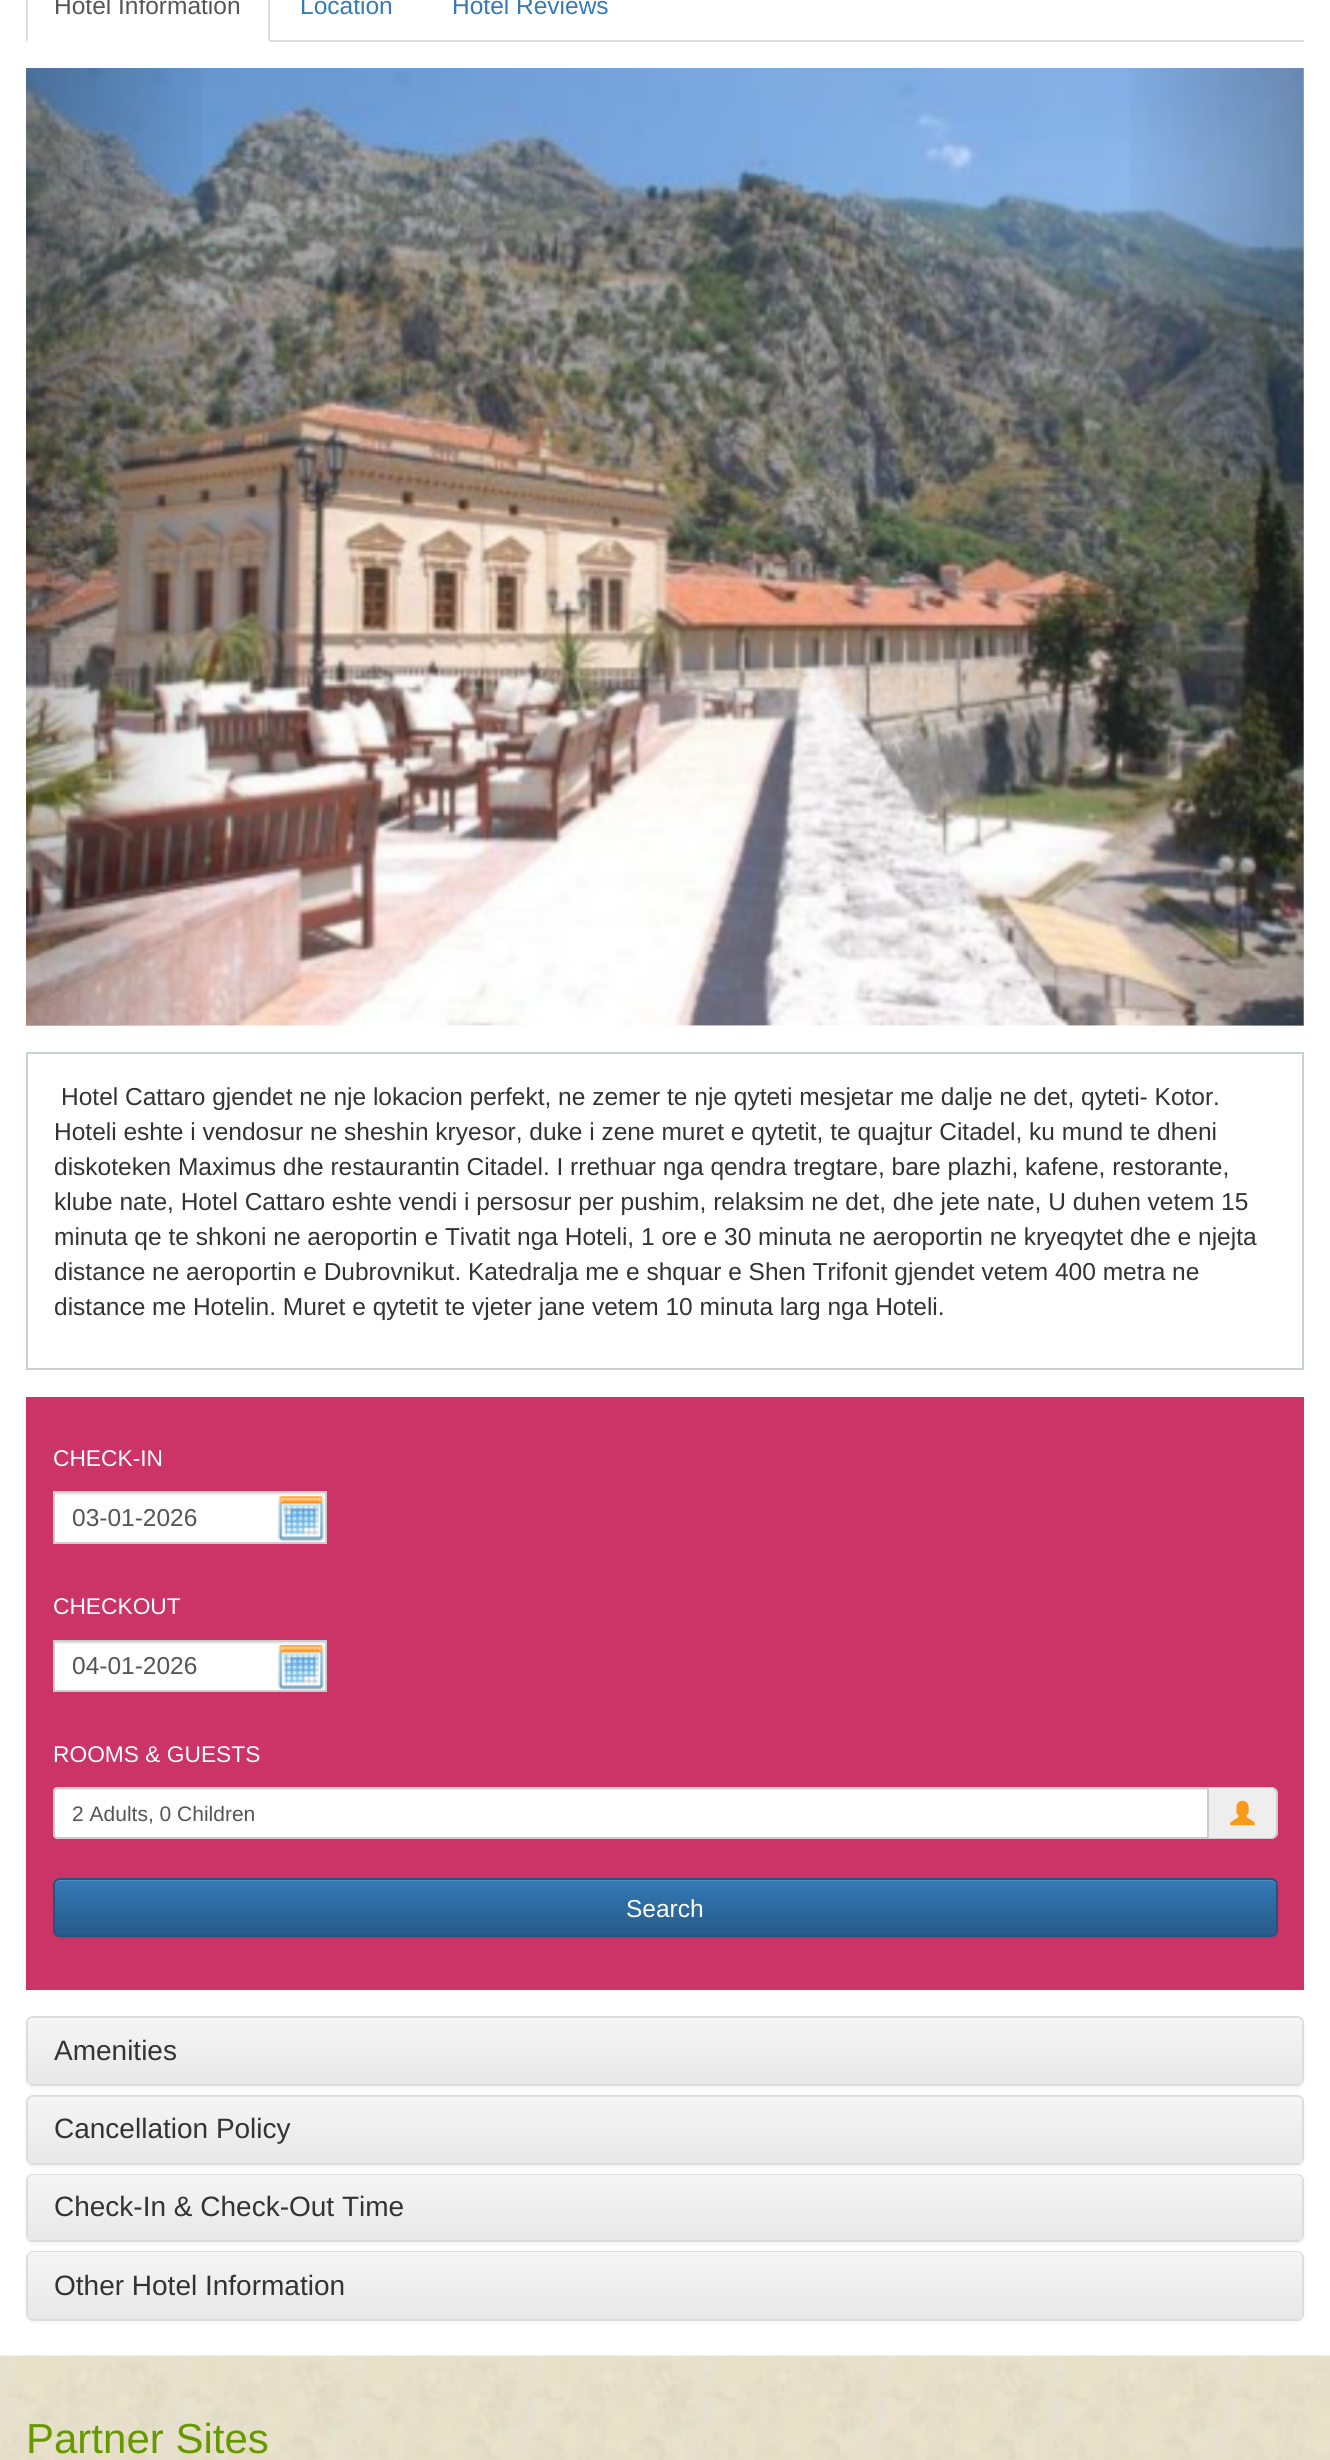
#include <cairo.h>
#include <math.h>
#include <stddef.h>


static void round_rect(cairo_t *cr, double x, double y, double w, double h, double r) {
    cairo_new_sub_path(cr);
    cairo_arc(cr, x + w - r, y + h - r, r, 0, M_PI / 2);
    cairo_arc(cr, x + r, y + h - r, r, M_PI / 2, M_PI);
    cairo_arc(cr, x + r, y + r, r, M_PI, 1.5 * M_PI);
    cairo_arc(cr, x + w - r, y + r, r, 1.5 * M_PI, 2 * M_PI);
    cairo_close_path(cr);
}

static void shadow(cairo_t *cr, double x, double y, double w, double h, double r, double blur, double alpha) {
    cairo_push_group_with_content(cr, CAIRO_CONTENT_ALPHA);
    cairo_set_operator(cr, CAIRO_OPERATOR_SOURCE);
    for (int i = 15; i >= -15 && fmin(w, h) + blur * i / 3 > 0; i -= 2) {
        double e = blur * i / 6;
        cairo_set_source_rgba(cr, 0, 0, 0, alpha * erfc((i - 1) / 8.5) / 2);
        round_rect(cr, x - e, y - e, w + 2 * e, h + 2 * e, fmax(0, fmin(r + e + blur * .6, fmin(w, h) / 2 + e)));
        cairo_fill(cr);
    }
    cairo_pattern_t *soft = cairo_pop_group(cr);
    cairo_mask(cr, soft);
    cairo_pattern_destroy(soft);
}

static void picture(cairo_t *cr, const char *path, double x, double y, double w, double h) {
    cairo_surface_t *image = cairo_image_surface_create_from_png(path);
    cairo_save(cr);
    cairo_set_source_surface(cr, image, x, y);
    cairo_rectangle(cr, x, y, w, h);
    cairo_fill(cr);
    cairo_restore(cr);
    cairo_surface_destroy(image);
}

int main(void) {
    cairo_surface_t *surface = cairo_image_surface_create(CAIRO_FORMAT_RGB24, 1330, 2460);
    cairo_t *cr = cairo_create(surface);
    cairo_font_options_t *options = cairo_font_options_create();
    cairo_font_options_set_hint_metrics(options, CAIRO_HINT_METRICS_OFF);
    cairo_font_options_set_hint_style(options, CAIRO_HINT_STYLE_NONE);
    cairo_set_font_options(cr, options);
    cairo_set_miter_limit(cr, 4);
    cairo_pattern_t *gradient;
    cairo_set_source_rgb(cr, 1, 1, 1);
    cairo_paint(cr);
    cairo_set_source_rgb(cr, 0.867, 0.867, 0.867);
    cairo_rectangle(cr, 270, 40, 1034, 2);
    cairo_fill(cr);
    cairo_new_path(cr);
    cairo_move_to(cr, 270, -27);
    cairo_line_to(cr, 270, 42);
    cairo_line_to(cr, 268, 40);
    cairo_line_to(cr, 268, -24);
    cairo_curve_to(cr, 268, -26, 267, -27, 266, -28);
    cairo_line_to(cr, 268, -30);
    cairo_close_path(cr);
    cairo_fill(cr);
    cairo_new_path(cr);
    cairo_move_to(cr, 26, 42);
    cairo_line_to(cr, 26, -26);
    cairo_line_to(cr, 28, -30);
    cairo_line_to(cr, 29, -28);
    cairo_curve_to(cr, 29, -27, 28, -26, 28, -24);
    cairo_line_to(cr, 28, 40);
    cairo_close_path(cr);
    cairo_fill(cr);
    cairo_select_font_face(cr, "Liberation Sans", CAIRO_FONT_SLANT_NORMAL, CAIRO_FONT_WEIGHT_NORMAL);
    cairo_set_font_size(cr, 24.5);
    cairo_set_source_rgb(cr, 0.333, 0.333, 0.333);
    cairo_move_to(cr, 54, 14);
    cairo_show_text(cr, "Hotel Information");
    cairo_set_source_rgb(cr, 0.2, 0.478, 0.718);
    cairo_move_to(cr, 300, 14);
    cairo_show_text(cr, "Location");
    cairo_move_to(cr, 452, 14);
    cairo_show_text(cr, "Hotel Reviews");
    picture(cr, "img1.png", 26, 68, 1278, 958);
    gradient = cairo_pattern_create_linear(26, 547, 219, 547);
    cairo_pattern_add_color_stop_rgba(gradient, 0, 0, 0, 0, 0.25);
    cairo_pattern_add_color_stop_rgba(gradient, 1, 0, 0, 0, 0);
    cairo_set_source(cr, gradient);
    cairo_pattern_destroy(gradient);
    cairo_rectangle(cr, 26, 68, 176, 958);
    cairo_fill(cr);
    gradient = cairo_pattern_create_linear(1113, 547, 1304, 547);
    cairo_pattern_add_color_stop_rgba(gradient, 0, 0, 0, 0, 0);
    cairo_pattern_add_color_stop_rgba(gradient, 1, 0, 0, 0, 0.25);
    cairo_set_source(cr, gradient);
    cairo_pattern_destroy(gradient);
    cairo_rectangle(cr, 1129, 68, 175, 958);
    cairo_fill(cr);
    cairo_rectangle(cr, 27, 1053, 1276, 316);
    cairo_set_source_rgb(cr, 0.773, 0.824, 0.839);
    cairo_stroke(cr);
    cairo_set_source_rgb(cr, 0.2, 0.2, 0.2);
    cairo_move_to(cr, 61, 1105);
    cairo_show_text(cr, "Hotel Cattaro gjendet ne nje lokacion perfekt, ne zemer te nje qyteti mesjetar me dalje ne det, qyteti- Kotor.");
    cairo_move_to(cr, 54, 1140);
    cairo_show_text(cr, "Hoteli eshte i vendosur ne sheshin kryesor, duke i zene muret e qytetit, te quajtur Citadel, ku mund te dheni");
    cairo_move_to(cr, 54, 1175);
    cairo_show_text(cr, "diskoteken Maximus dhe restaurantin Citadel. I rrethuar nga qendra tregtare, bare plazhi, kafene, restorante,");
    cairo_move_to(cr, 54, 1210);
    cairo_show_text(cr, "klube nate, Hotel Cattaro eshte vendi i persosur per pushim, relaksim ne det, dhe jete nate, U duhen vetem 15");
    cairo_move_to(cr, 54, 1245);
    cairo_show_text(cr, "minuta qe te shkoni ne aeroportin e Tivatit nga Hoteli, 1 ore e 30 minuta ne aeroportin ne kryeqytet dhe e njejta");
    cairo_move_to(cr, 54, 1280);
    cairo_show_text(cr, "distance ne aeroportin e Dubrovnikut. Katedralja me e shquar e Shen Trifonit gjendet vetem 400 metra ne");
    cairo_move_to(cr, 54, 1315);
    cairo_show_text(cr, "distance me Hotelin. Muret e qytetit te vjeter jane vetem 10 minuta larg nga Hoteli.");
    cairo_set_source_rgb(cr, 0.8, 0.2, 0.4);
    cairo_rectangle(cr, 26, 1397, 1278, 593);
    cairo_fill(cr);
    cairo_set_font_size(cr, 22.75);
    cairo_set_source_rgb(cr, 1, 1, 1);
    cairo_move_to(cr, 53, 1466);
    cairo_show_text(cr, "CHECK-IN");
    cairo_rectangle(cr, 55, 1495, 270, 47);
    cairo_fill(cr);
    picture(cr, "img2.png", 278, 1496, 46, 46);
    cairo_set_source_rgb(cr, 0.925, 0.925, 0.925);
    cairo_rectangle(cr, 54, 1493, 272, 2);
    cairo_fill(cr);
    cairo_rectangle(cr, 54, 1492, 272, 51);
    cairo_set_source_rgb(cr, 0.8, 0.8, 0.8);
    cairo_stroke(cr);
    cairo_set_font_size(cr, 24.5);
    cairo_set_source_rgb(cr, 0.333, 0.333, 0.333);
    cairo_move_to(cr, 72, 1526);
    cairo_show_text(cr, "03-01-2026");
    cairo_set_font_size(cr, 22.75);
    cairo_set_source_rgb(cr, 1, 1, 1);
    cairo_move_to(cr, 53, 1614);
    cairo_show_text(cr, "CHECKOUT");
    cairo_rectangle(cr, 55, 1644, 270, 46);
    cairo_fill(cr);
    picture(cr, "img3.png", 278, 1645, 46, 45);
    cairo_set_source_rgb(cr, 0.925, 0.925, 0.925);
    cairo_rectangle(cr, 54, 1642, 272, 2);
    cairo_fill(cr);
    cairo_rectangle(cr, 54, 1641, 272, 50);
    cairo_set_source_rgb(cr, 0.8, 0.8, 0.8);
    cairo_stroke(cr);
    cairo_set_font_size(cr, 24.5);
    cairo_set_source_rgb(cr, 0.333, 0.333, 0.333);
    cairo_move_to(cr, 72, 1674);
    cairo_show_text(cr, "04-01-2026");
    cairo_set_font_size(cr, 22.75);
    cairo_set_source_rgb(cr, 1, 1, 1);
    cairo_move_to(cr, 53, 1762);
    cairo_show_text(cr, "ROOMS & GUESTS");
    cairo_new_path(cr);
    cairo_move_to(cr, 58, 1787);
    cairo_line_to(cr, 1209, 1787);
    cairo_line_to(cr, 1209, 1839);
    cairo_line_to(cr, 58, 1839);
    cairo_curve_to(cr, 55, 1839, 53, 1837, 53, 1834);
    cairo_line_to(cr, 53, 1792);
    cairo_curve_to(cr, 53, 1789, 55, 1787, 58, 1787);
    cairo_close_path(cr);
    cairo_fill(cr);
    cairo_set_source_rgb(cr, 0.925, 0.925, 0.925);
    cairo_new_path(cr);
    cairo_move_to(cr, 58, 1790);
    cairo_line_to(cr, 1208, 1790);
    cairo_line_to(cr, 1208, 1789);
    cairo_line_to(cr, 58, 1789);
    cairo_curve_to(cr, 55, 1789, 54, 1791, 54, 1794);
    cairo_curve_to(cr, 54, 1792, 56, 1790, 58, 1790);
    cairo_close_path(cr);
    cairo_fill(cr);
    cairo_new_path(cr);
    cairo_move_to(cr, 58, 1788);
    cairo_line_to(cr, 1208, 1788);
    cairo_line_to(cr, 1208, 1838);
    cairo_line_to(cr, 58, 1838);
    cairo_curve_to(cr, 56, 1838, 54, 1836, 54, 1834);
    cairo_line_to(cr, 54, 1792);
    cairo_curve_to(cr, 54, 1790, 56, 1788, 58, 1788);
    cairo_close_path(cr);
    cairo_set_source_rgb(cr, 0.8, 0.8, 0.8);
    cairo_stroke(cr);
    cairo_set_font_size(cr, 21);
    cairo_set_source_rgb(cr, 0.333, 0.333, 0.333);
    cairo_move_to(cr, 72, 1821);
    cairo_show_text(cr, "2 Adults, 0 Children");
    cairo_set_source_rgb(cr, 0.933, 0.933, 0.933);
    cairo_new_path(cr);
    cairo_move_to(cr, 1209, 1787);
    cairo_line_to(cr, 1271, 1787);
    cairo_curve_to(cr, 1275, 1787, 1278, 1790, 1278, 1794);
    cairo_line_to(cr, 1278, 1832);
    cairo_curve_to(cr, 1278, 1836, 1275, 1839, 1271, 1839);
    cairo_line_to(cr, 1209, 1839);
    cairo_close_path(cr);
    cairo_fill(cr);
    cairo_set_source_rgb(cr, 0.8, 0.8, 0.8);
    cairo_set_fill_rule(cr, CAIRO_FILL_RULE_EVEN_ODD);
    cairo_new_path(cr);
    cairo_move_to(cr, 1209, 1787);
    cairo_line_to(cr, 1270, 1787);
    cairo_curve_to(cr, 1274, 1787, 1278, 1790, 1278, 1794);
    cairo_line_to(cr, 1278, 1832);
    cairo_curve_to(cr, 1278, 1836, 1274, 1839, 1270, 1839);
    cairo_line_to(cr, 1209, 1839);
    cairo_close_path(cr);
    cairo_move_to(cr, 1209, 1788);
    cairo_line_to(cr, 1270, 1788);
    cairo_curve_to(cr, 1273, 1788, 1276, 1791, 1276, 1794);
    cairo_line_to(cr, 1276, 1832);
    cairo_curve_to(cr, 1276, 1835, 1273, 1838, 1270, 1838);
    cairo_line_to(cr, 1209, 1838);
    cairo_close_path(cr);
    cairo_fill(cr);
    picture(cr, "img4.png", 1230, 1800, 25, 26);
    cairo_set_source_rgb(cr, 0, 0, 0);
    shadow(cr, 53, 1880, 1225, 59, 7, 1, 0.07);
    cairo_save(cr);
    cairo_set_fill_rule(cr, CAIRO_FILL_RULE_WINDING);
    round_rect(cr, 53, 1878, 1225, 59, 7);
    cairo_clip(cr);
    gradient = cairo_pattern_create_linear(665, 1880, 665, 1936);
    cairo_pattern_add_color_stop_rgba(gradient, 0, 0.2, 0.478, 0.718, 1);
    cairo_pattern_add_color_stop_rgba(gradient, 1, 0.149, 0.353, 0.533, 1);
    cairo_set_source(cr, gradient);
    cairo_pattern_destroy(gradient);
    cairo_rectangle(cr, 53, 1880, 1225, 56);
    cairo_fill(cr);
    cairo_restore(cr);
    cairo_set_source_rgb(cr, 0.322, 0.557, 0.761);
    cairo_set_fill_rule(cr, CAIRO_FILL_RULE_WINDING);
    cairo_new_path(cr);
    cairo_move_to(cr, 60, 1881);
    cairo_line_to(cr, 1270, 1881);
    cairo_curve_to(cr, 1273, 1881, 1276, 1884, 1276, 1886);
    cairo_curve_to(cr, 1276, 1883, 1274, 1880, 1271, 1880);
    cairo_line_to(cr, 59, 1880);
    cairo_curve_to(cr, 56, 1880, 54, 1883, 54, 1886);
    cairo_curve_to(cr, 54, 1884, 57, 1881, 60, 1881);
    cairo_close_path(cr);
    cairo_fill(cr);
    round_rect(cr, 54, 1879, 1223, 57, 6);
    cairo_set_source_rgb(cr, 0.141, 0.333, 0.502);
    cairo_stroke(cr);
    cairo_set_font_size(cr, 24.5);
    cairo_set_source_rgb(cr, 1, 1, 1);
    cairo_move_to(cr, 626, 1917);
    cairo_show_text(cr, "Search");
    cairo_set_source_rgb(cr, 0, 0, 0);
    shadow(cr, 26, 2018, 1278, 70, 7, 2, 0.05);
    round_rect(cr, 27, 2017, 1276, 68, 6);
    cairo_set_source_rgb(cr, 0.867, 0.867, 0.867);
    cairo_stroke(cr);
    gradient = cairo_pattern_create_linear(665, 2018, 665, 2084);
    cairo_pattern_add_color_stop_rgba(gradient, 0, 0.961, 0.961, 0.961, 1);
    cairo_pattern_add_color_stop_rgba(gradient, 1, 0.91, 0.91, 0.91, 1);
    cairo_set_source(cr, gradient);
    cairo_pattern_destroy(gradient);
    cairo_new_path(cr);
    cairo_move_to(cr, 33, 2018);
    cairo_line_to(cr, 1297, 2018);
    cairo_curve_to(cr, 1300, 2018, 1302, 2020, 1302, 2023);
    cairo_line_to(cr, 1302, 2084);
    cairo_line_to(cr, 28, 2084);
    cairo_line_to(cr, 28, 2023);
    cairo_curve_to(cr, 28, 2020, 30, 2018, 33, 2018);
    cairo_close_path(cr);
    cairo_fill(cr);
    cairo_set_font_size(cr, 28);
    cairo_set_source_rgb(cr, 0.2, 0.2, 0.2);
    cairo_move_to(cr, 54, 2060);
    cairo_show_text(cr, "Amenities");
    cairo_set_source_rgb(cr, 0, 0, 0);
    shadow(cr, 26, 2097, 1278, 70, 7, 2, 0.05);
    round_rect(cr, 27, 2096, 1276, 68, 6);
    cairo_set_source_rgb(cr, 0.867, 0.867, 0.867);
    cairo_stroke(cr);
    gradient = cairo_pattern_create_linear(665, 2097, 665, 2163);
    cairo_pattern_add_color_stop_rgba(gradient, 0, 0.961, 0.961, 0.961, 1);
    cairo_pattern_add_color_stop_rgba(gradient, 1, 0.91, 0.91, 0.91, 1);
    cairo_set_source(cr, gradient);
    cairo_pattern_destroy(gradient);
    cairo_new_path(cr);
    cairo_move_to(cr, 33, 2097);
    cairo_line_to(cr, 1297, 2097);
    cairo_curve_to(cr, 1300, 2097, 1302, 2099, 1302, 2102);
    cairo_line_to(cr, 1302, 2163);
    cairo_line_to(cr, 28, 2163);
    cairo_line_to(cr, 28, 2102);
    cairo_curve_to(cr, 28, 2099, 30, 2097, 33, 2097);
    cairo_close_path(cr);
    cairo_fill(cr);
    cairo_set_source_rgb(cr, 0.2, 0.2, 0.2);
    cairo_move_to(cr, 54, 2138);
    cairo_show_text(cr, "Cancellation Policy");
    cairo_set_source_rgb(cr, 0, 0, 0);
    shadow(cr, 26, 2175, 1278, 69, 7, 2, 0.05);
    round_rect(cr, 27, 2175, 1276, 66, 6);
    cairo_set_source_rgb(cr, 0.867, 0.867, 0.867);
    cairo_stroke(cr);
    gradient = cairo_pattern_create_linear(665, 2175, 665, 2240);
    cairo_pattern_add_color_stop_rgba(gradient, 0, 0.961, 0.961, 0.961, 1);
    cairo_pattern_add_color_stop_rgba(gradient, 1, 0.91, 0.91, 0.91, 1);
    cairo_set_source(cr, gradient);
    cairo_pattern_destroy(gradient);
    cairo_new_path(cr);
    cairo_move_to(cr, 33, 2175);
    cairo_line_to(cr, 1297, 2175);
    cairo_curve_to(cr, 1300, 2175, 1302, 2177, 1302, 2180);
    cairo_line_to(cr, 1302, 2240);
    cairo_line_to(cr, 28, 2240);
    cairo_line_to(cr, 28, 2180);
    cairo_curve_to(cr, 28, 2177, 30, 2175, 33, 2175);
    cairo_close_path(cr);
    cairo_fill(cr);
    cairo_set_source_rgb(cr, 0.2, 0.2, 0.2);
    cairo_move_to(cr, 54, 2216);
    cairo_show_text(cr, "Check-In & Check-Out Time");
    cairo_set_source_rgb(cr, 0, 0, 0);
    shadow(cr, 26, 2252, 1278, 70, 7, 2, 0.05);
    round_rect(cr, 27, 2252, 1276, 68, 6);
    cairo_set_source_rgb(cr, 0.867, 0.867, 0.867);
    cairo_stroke(cr);
    gradient = cairo_pattern_create_linear(665, 2252, 665, 2319);
    cairo_pattern_add_color_stop_rgba(gradient, 0, 0.961, 0.961, 0.961, 1);
    cairo_pattern_add_color_stop_rgba(gradient, 1, 0.91, 0.91, 0.91, 1);
    cairo_set_source(cr, gradient);
    cairo_pattern_destroy(gradient);
    cairo_new_path(cr);
    cairo_move_to(cr, 33, 2252);
    cairo_line_to(cr, 1297, 2252);
    cairo_curve_to(cr, 1300, 2252, 1302, 2254, 1302, 2257);
    cairo_line_to(cr, 1302, 2319);
    cairo_line_to(cr, 28, 2319);
    cairo_line_to(cr, 28, 2257);
    cairo_curve_to(cr, 28, 2254, 30, 2252, 33, 2252);
    cairo_close_path(cr);
    cairo_fill(cr);
    cairo_set_source_rgb(cr, 0.2, 0.2, 0.2);
    cairo_move_to(cr, 54, 2295);
    cairo_show_text(cr, "Other Hotel Information");
    picture(cr, "img5.png", 0, 2355, 1330, 105);
    cairo_set_font_size(cr, 42);
    cairo_set_source_rgb(cr, 0.4, 0.6, 0);
    cairo_move_to(cr, 26, 2453);
    cairo_show_text(cr, "Partner Sites");
    cairo_surface_write_to_png(surface, "page.png");
    cairo_font_options_destroy(options);
    cairo_destroy(cr);
    cairo_surface_destroy(surface);
    return 0;
}
